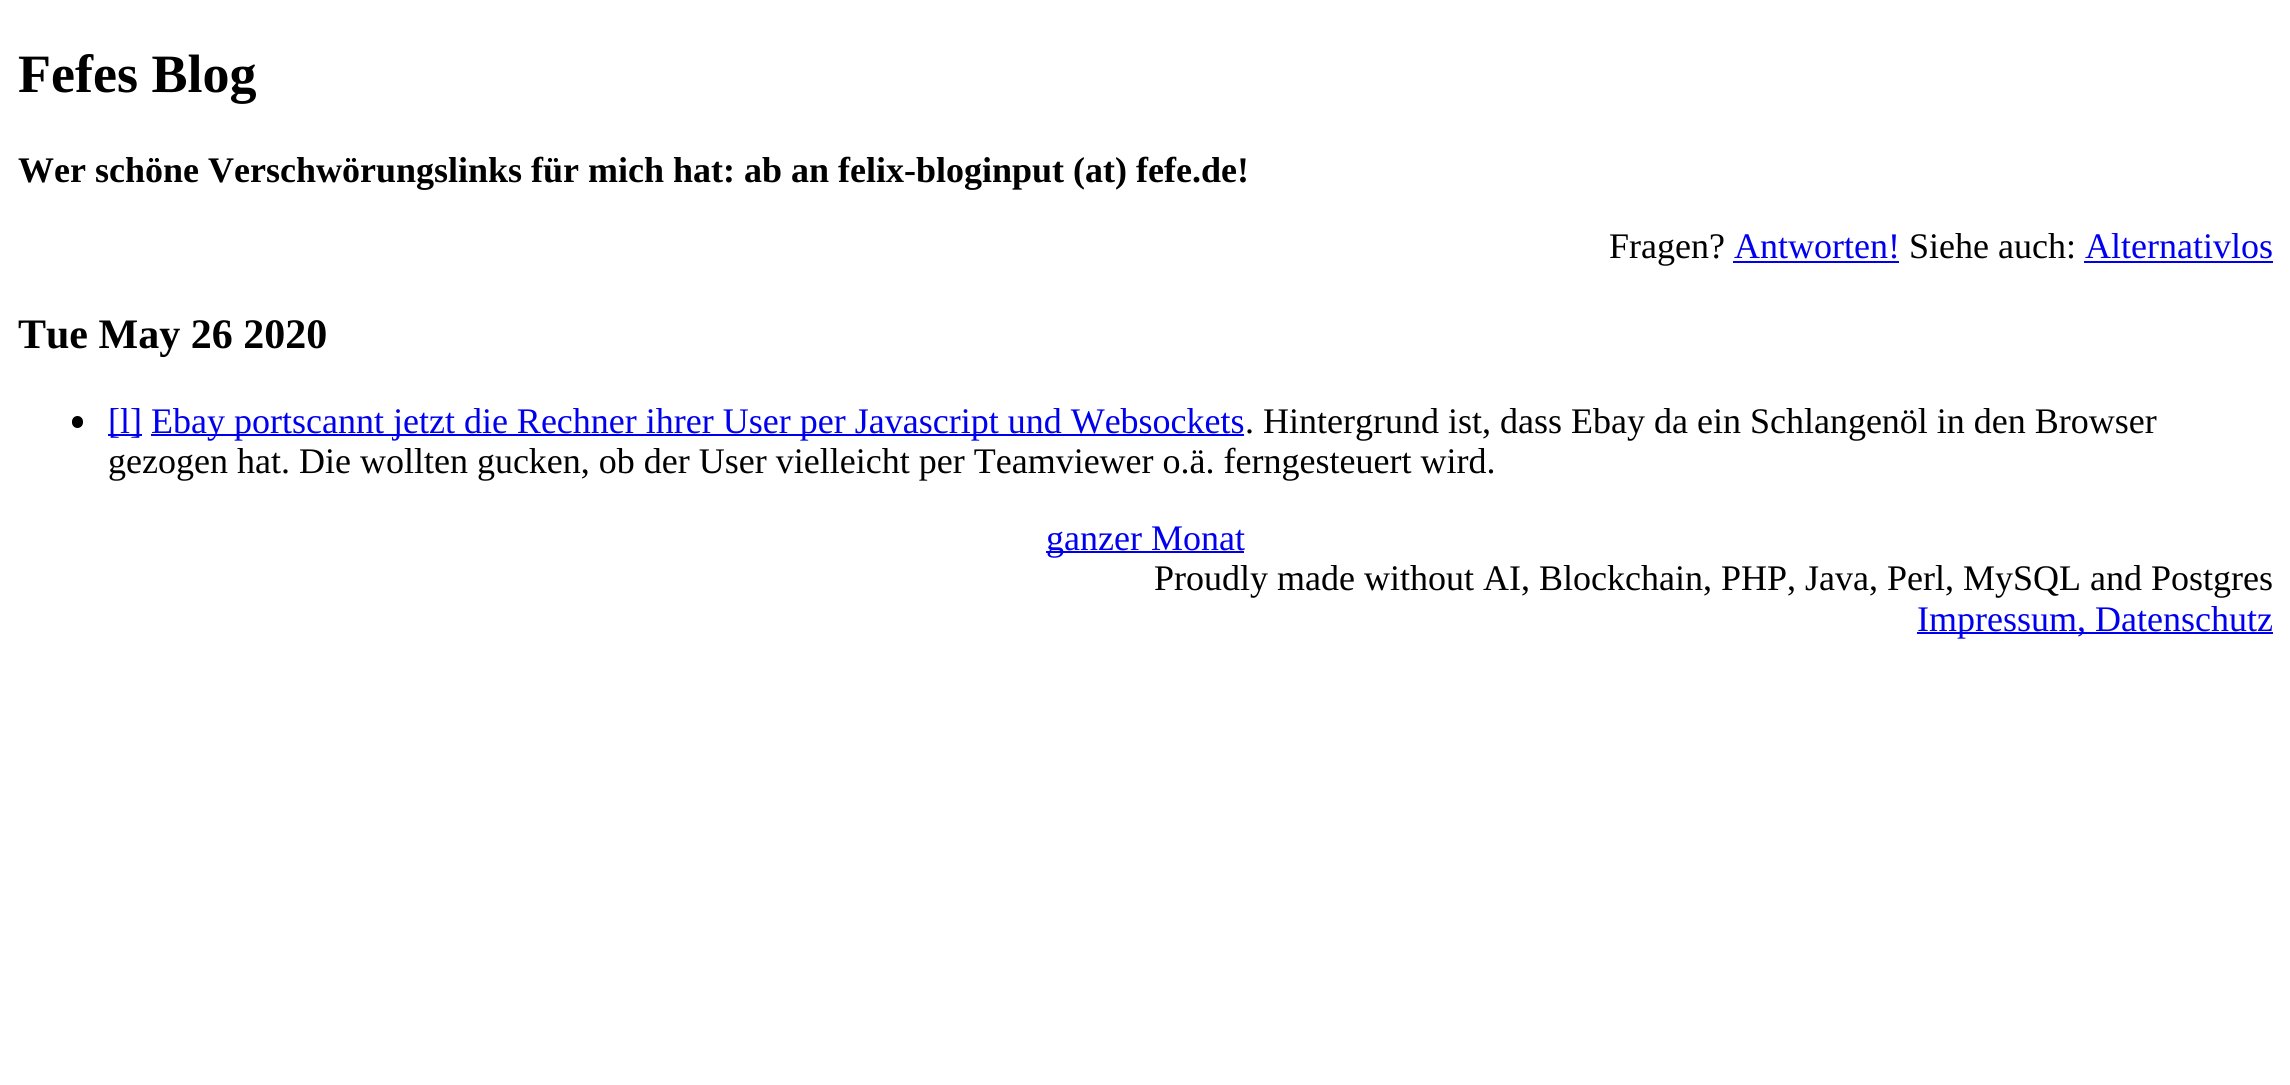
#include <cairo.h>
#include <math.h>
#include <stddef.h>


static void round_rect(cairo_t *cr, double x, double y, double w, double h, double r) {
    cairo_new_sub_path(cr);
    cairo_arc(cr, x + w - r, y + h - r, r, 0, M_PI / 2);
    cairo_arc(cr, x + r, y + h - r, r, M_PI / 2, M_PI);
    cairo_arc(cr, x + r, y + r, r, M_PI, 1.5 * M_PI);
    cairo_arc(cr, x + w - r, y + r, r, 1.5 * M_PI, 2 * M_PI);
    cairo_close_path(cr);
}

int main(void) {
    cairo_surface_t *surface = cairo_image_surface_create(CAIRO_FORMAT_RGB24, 2290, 1085);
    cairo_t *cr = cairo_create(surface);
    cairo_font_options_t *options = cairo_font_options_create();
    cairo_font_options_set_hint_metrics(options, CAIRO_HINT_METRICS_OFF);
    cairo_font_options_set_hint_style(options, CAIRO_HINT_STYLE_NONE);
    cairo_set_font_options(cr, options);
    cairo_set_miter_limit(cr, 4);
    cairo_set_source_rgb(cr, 1, 1, 1);
    cairo_paint(cr);
    cairo_select_font_face(cr, "Liberation Serif", CAIRO_FONT_SLANT_NORMAL, CAIRO_FONT_WEIGHT_BOLD);
    cairo_set_font_size(cr, 54);
    cairo_set_source_rgb(cr, 0, 0, 0);
    cairo_move_to(cr, 18, 92);
    cairo_show_text(cr, "Fefes Blog");
    cairo_set_font_size(cr, 36);
    cairo_move_to(cr, 18, 182);
    cairo_show_text(cr, "Wer schöne Verschwörungslinks für mich hat: ab an felix-bloginput (at) fefe.de!");
    cairo_select_font_face(cr, "Liberation Serif", CAIRO_FONT_SLANT_NORMAL, CAIRO_FONT_WEIGHT_NORMAL);
    cairo_move_to(cr, 1609, 258);
    cairo_show_text(cr, "Fragen?");
    cairo_set_source_rgb(cr, 0, 0, 0.933);
    cairo_move_to(cr, 1734, 258);
    cairo_show_text(cr, "Antworten!");
    cairo_rectangle(cr, 1733, 261, 166, 2);
    cairo_fill(cr);
    cairo_set_source_rgb(cr, 0, 0, 0);
    cairo_move_to(cr, 1909, 258);
    cairo_show_text(cr, "Siehe auch:");
    cairo_set_source_rgb(cr, 0, 0, 0.933);
    cairo_move_to(cr, 2085, 258);
    cairo_show_text(cr, "Alternativlos");
    cairo_rectangle(cr, 2084, 261, 189, 2);
    cairo_fill(cr);
    cairo_select_font_face(cr, "Liberation Serif", CAIRO_FONT_SLANT_NORMAL, CAIRO_FONT_WEIGHT_BOLD);
    cairo_set_font_size(cr, 42);
    cairo_set_source_rgb(cr, 0, 0, 0);
    cairo_move_to(cr, 18, 348);
    cairo_show_text(cr, "Tue May 26 2020");
    round_rect(cr, 72, 416, 11, 12, 5.5);
    cairo_fill(cr);
    cairo_set_source_rgb(cr, 0, 0, 0.933);
    cairo_rectangle(cr, 108, 434, 34, 2);
    cairo_fill(cr);
    cairo_select_font_face(cr, "Liberation Serif", CAIRO_FONT_SLANT_NORMAL, CAIRO_FONT_WEIGHT_NORMAL);
    cairo_set_font_size(cr, 36);
    cairo_move_to(cr, 108, 433);
    cairo_show_text(cr, "[l]");
    cairo_rectangle(cr, 151, 434, 1093, 2);
    cairo_fill(cr);
    cairo_move_to(cr, 151, 433);
    cairo_show_text(cr, "Ebay portscannt jetzt die Rechner ihrer User per Javascript und Websockets");
    cairo_set_source_rgb(cr, 0, 0, 0);
    cairo_move_to(cr, 1245, 433);
    cairo_show_text(cr, ". Hintergrund ist, dass Ebay da ein Schlangenöl in den Browser");
    cairo_move_to(cr, 108, 473);
    cairo_show_text(cr, "gezogen hat. Die wollten gucken, ob der User vielleicht per Teamviewer o.ä. ferngesteuert wird.");
    cairo_set_source_rgb(cr, 0, 0, 0.933);
    cairo_rectangle(cr, 1046, 551, 198, 2);
    cairo_fill(cr);
    cairo_move_to(cr, 1046, 550);
    cairo_show_text(cr, "ganzer Monat");
    cairo_set_source_rgb(cr, 0, 0, 0);
    cairo_move_to(cr, 1154, 590);
    cairo_show_text(cr, "Proudly made without AI, Blockchain, PHP, Java, Perl, MySQL and Postgres");
    cairo_set_source_rgb(cr, 0, 0, 0.933);
    cairo_rectangle(cr, 1917, 632, 356, 2);
    cairo_fill(cr);
    cairo_move_to(cr, 1917, 631);
    cairo_show_text(cr, "Impressum, Datenschutz");
    cairo_surface_write_to_png(surface, "page.png");
    cairo_font_options_destroy(options);
    cairo_destroy(cr);
    cairo_surface_destroy(surface);
    return 0;
}
